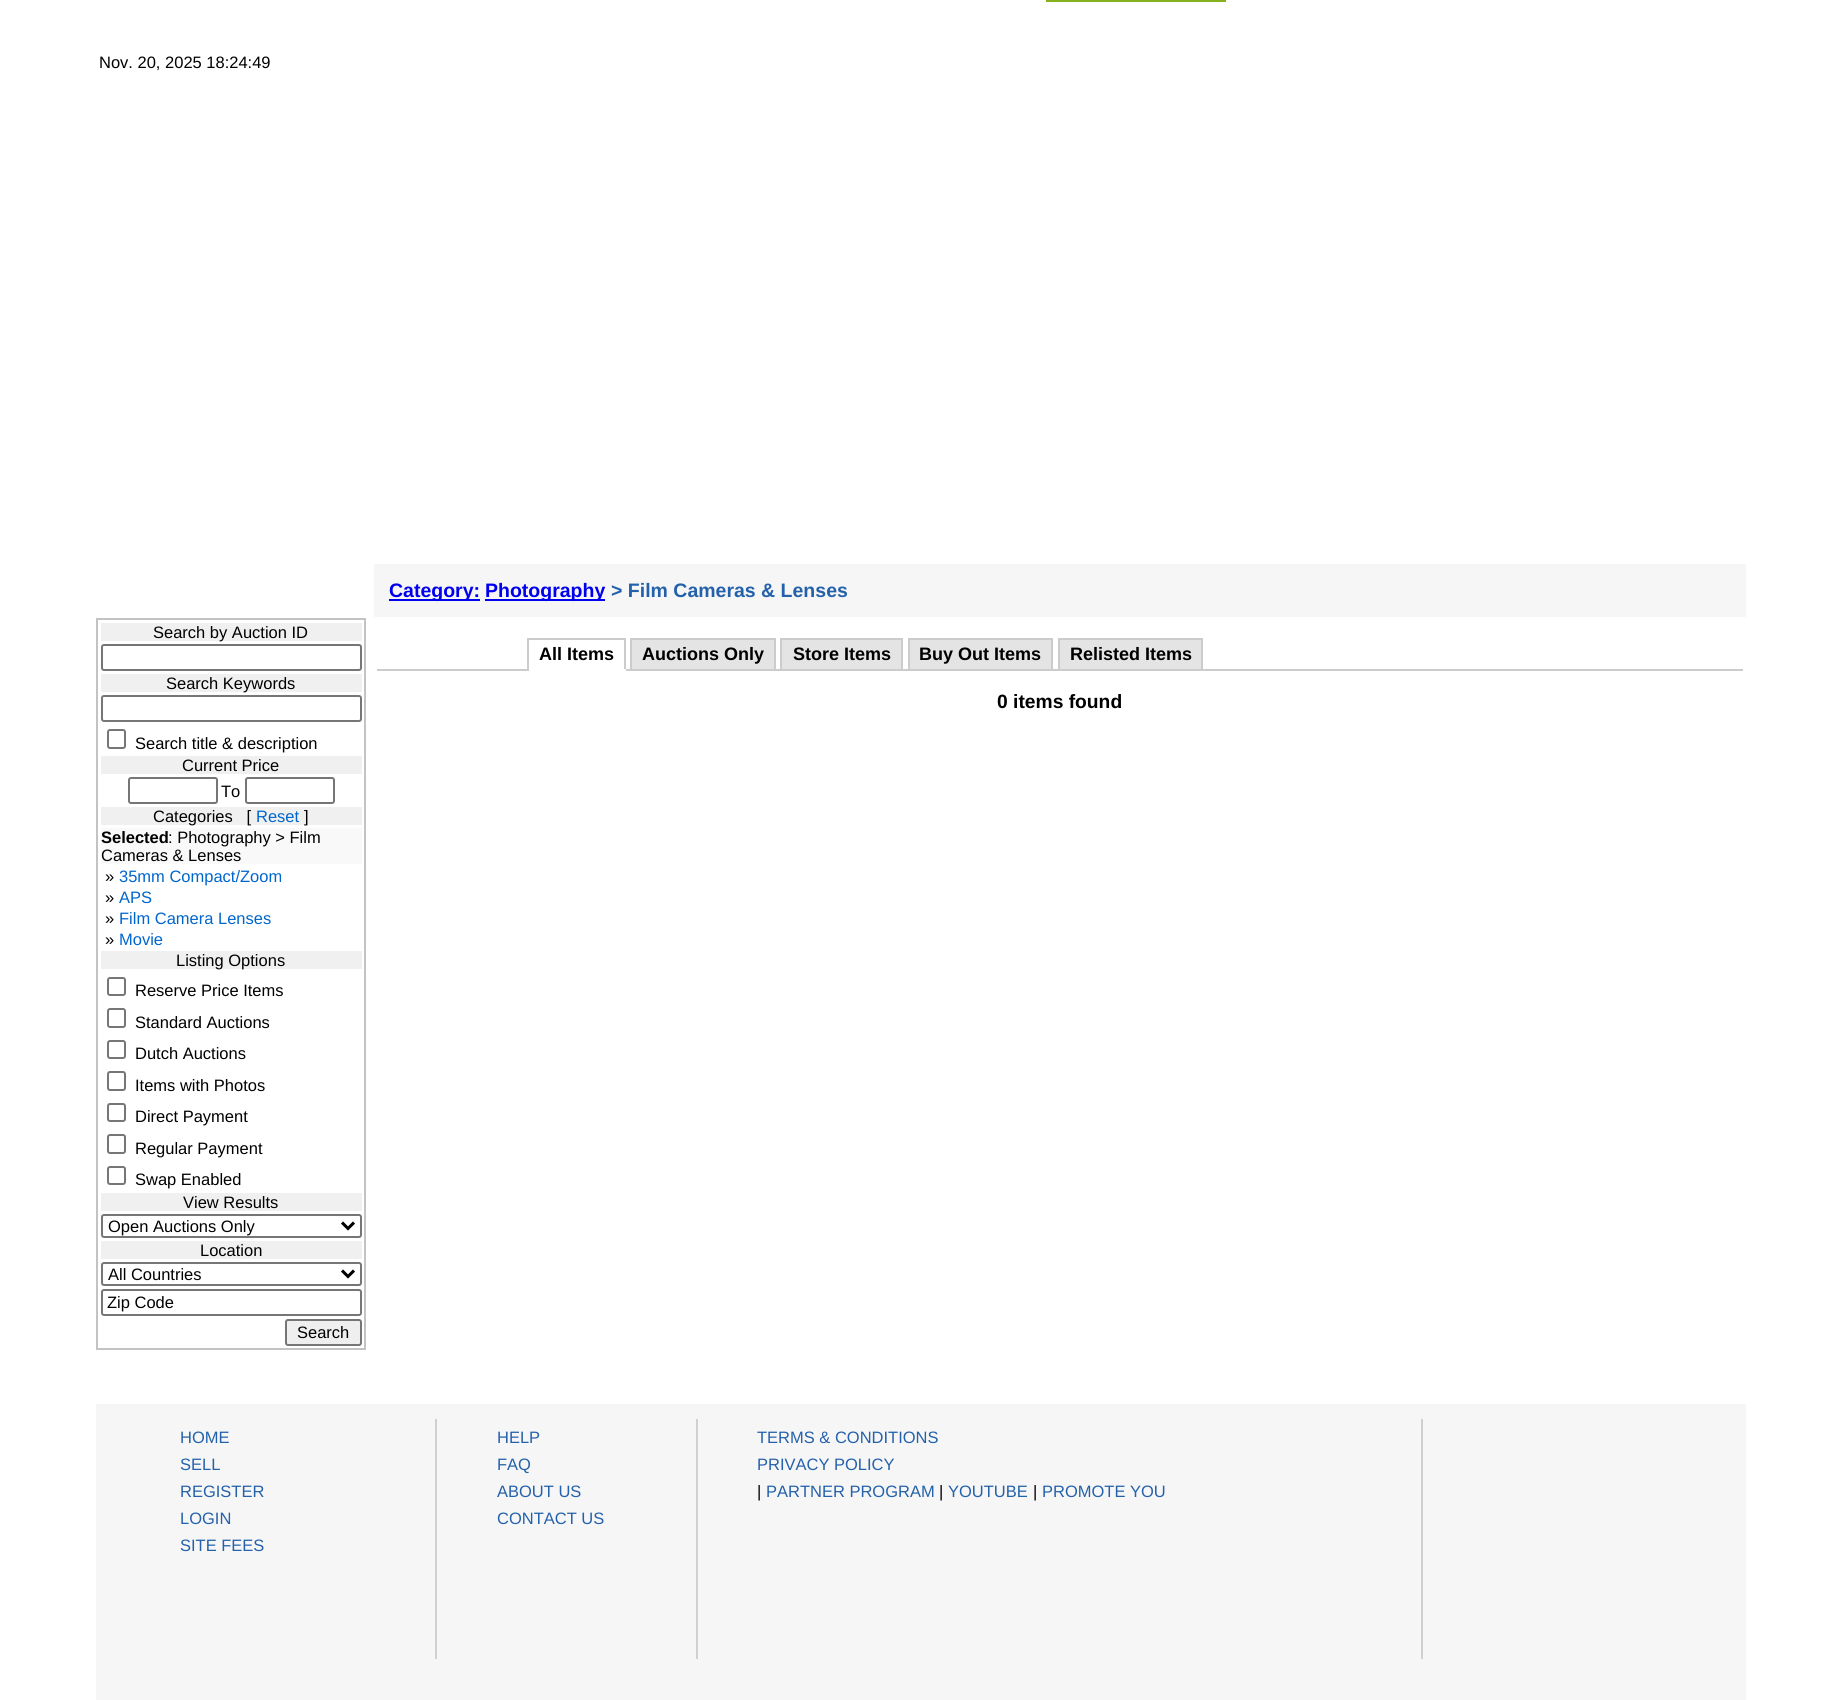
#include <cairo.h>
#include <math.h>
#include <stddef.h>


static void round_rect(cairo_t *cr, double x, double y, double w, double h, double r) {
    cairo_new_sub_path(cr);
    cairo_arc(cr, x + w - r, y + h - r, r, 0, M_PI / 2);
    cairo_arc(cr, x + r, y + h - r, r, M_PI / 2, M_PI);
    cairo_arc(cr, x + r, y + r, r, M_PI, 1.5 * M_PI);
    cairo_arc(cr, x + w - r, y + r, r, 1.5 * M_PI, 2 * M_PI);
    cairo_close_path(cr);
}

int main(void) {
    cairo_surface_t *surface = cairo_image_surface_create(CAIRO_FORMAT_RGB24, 1842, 1700);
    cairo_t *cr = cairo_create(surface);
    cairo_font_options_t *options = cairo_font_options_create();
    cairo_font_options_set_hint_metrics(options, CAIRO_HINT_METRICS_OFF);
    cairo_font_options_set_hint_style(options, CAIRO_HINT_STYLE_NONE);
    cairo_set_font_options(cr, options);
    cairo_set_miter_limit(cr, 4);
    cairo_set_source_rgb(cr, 1, 1, 1);
    cairo_paint(cr);
    cairo_set_source_rgb(cr, 0.522, 0.694, 0.125);
    cairo_rectangle(cr, 1046, 0, 180, 2);
    cairo_fill(cr);
    cairo_select_font_face(cr, "Liberation Sans", CAIRO_FONT_SLANT_NORMAL, CAIRO_FONT_WEIGHT_NORMAL);
    cairo_set_font_size(cr, 16.5);
    cairo_set_source_rgb(cr, 0, 0, 0);
    cairo_move_to(cr, 99, 68);
    cairo_show_text(cr, "Nov. 20, 2025 18:24:49");
    cairo_rectangle(cr, 97, 619, 268, 730);
    cairo_set_source_rgb(cr, 0.765, 0.765, 0.765);
    cairo_stroke(cr);
    cairo_set_source_rgb(cr, 0.941, 0.941, 0.941);
    cairo_rectangle(cr, 101, 623, 261, 18);
    cairo_fill(cr);
    cairo_set_source_rgb(cr, 0, 0, 0);
    cairo_move_to(cr, 153, 638);
    cairo_show_text(cr, "Search by Auction ID");
    round_rect(cr, 102, 645, 259, 25, 2);
    cairo_set_source_rgb(cr, 0.463, 0.463, 0.463);
    cairo_stroke(cr);
    cairo_set_source_rgb(cr, 0.941, 0.941, 0.941);
    cairo_rectangle(cr, 101, 674, 261, 18);
    cairo_fill(cr);
    cairo_set_source_rgb(cr, 0, 0, 0);
    cairo_move_to(cr, 166, 689);
    cairo_show_text(cr, "Search Keywords");
    round_rect(cr, 102, 696, 259, 25, 2);
    cairo_set_source_rgb(cr, 0.463, 0.463, 0.463);
    cairo_stroke(cr);
    round_rect(cr, 108, 730, 17, 18, 2);
    cairo_stroke(cr);
    cairo_set_source_rgb(cr, 0, 0, 0);
    cairo_move_to(cr, 135, 749);
    cairo_show_text(cr, "Search title & description");
    cairo_set_source_rgb(cr, 0.941, 0.941, 0.941);
    cairo_rectangle(cr, 101, 756, 261, 18);
    cairo_fill(cr);
    cairo_set_source_rgb(cr, 0, 0, 0);
    cairo_move_to(cr, 182, 771);
    cairo_show_text(cr, "Current Price");
    round_rect(cr, 129, 778, 88, 25, 2);
    cairo_set_source_rgb(cr, 0.463, 0.463, 0.463);
    cairo_stroke(cr);
    cairo_set_source_rgb(cr, 0, 0, 0);
    cairo_move_to(cr, 221, 797);
    cairo_show_text(cr, "To");
    round_rect(cr, 246, 778, 88, 25, 2);
    cairo_set_source_rgb(cr, 0.463, 0.463, 0.463);
    cairo_stroke(cr);
    cairo_set_source_rgb(cr, 0.941, 0.941, 0.941);
    cairo_rectangle(cr, 101, 807, 261, 18);
    cairo_fill(cr);
    cairo_set_source_rgb(cr, 0, 0, 0);
    cairo_move_to(cr, 153, 822);
    cairo_show_text(cr, "Categories   [");
    cairo_set_source_rgb(cr, 0, 0.4, 0.8);
    cairo_move_to(cr, 256, 822);
    cairo_show_text(cr, "Reset");
    cairo_set_source_rgb(cr, 0, 0, 0);
    cairo_move_to(cr, 304, 822);
    cairo_show_text(cr, "]");
    cairo_set_source_rgb(cr, 0.973, 0.973, 0.973);
    cairo_rectangle(cr, 101, 828, 261, 36);
    cairo_fill(cr);
    cairo_select_font_face(cr, "Liberation Sans", CAIRO_FONT_SLANT_NORMAL, CAIRO_FONT_WEIGHT_BOLD);
    cairo_set_source_rgb(cr, 0, 0, 0);
    cairo_move_to(cr, 101, 843);
    cairo_show_text(cr, "Selected");
    cairo_select_font_face(cr, "Liberation Sans", CAIRO_FONT_SLANT_NORMAL, CAIRO_FONT_WEIGHT_NORMAL);
    cairo_move_to(cr, 168, 843);
    cairo_show_text(cr, ": Photography > Film");
    cairo_move_to(cr, 101, 861);
    cairo_show_text(cr, "Cameras & Lenses");
    cairo_move_to(cr, 105, 882);
    cairo_show_text(cr, "»");
    cairo_set_source_rgb(cr, 0, 0.4, 0.8);
    cairo_move_to(cr, 119, 882);
    cairo_show_text(cr, "35mm Compact/Zoom");
    cairo_set_source_rgb(cr, 0, 0, 0);
    cairo_move_to(cr, 105, 903);
    cairo_show_text(cr, "»");
    cairo_set_source_rgb(cr, 0, 0.4, 0.8);
    cairo_move_to(cr, 119, 903);
    cairo_show_text(cr, "APS");
    cairo_set_source_rgb(cr, 0, 0, 0);
    cairo_move_to(cr, 105, 924);
    cairo_show_text(cr, "»");
    cairo_set_source_rgb(cr, 0, 0.4, 0.8);
    cairo_move_to(cr, 119, 924);
    cairo_show_text(cr, "Film Camera Lenses");
    cairo_set_source_rgb(cr, 0, 0, 0);
    cairo_move_to(cr, 105, 945);
    cairo_show_text(cr, "»");
    cairo_set_source_rgb(cr, 0, 0.4, 0.8);
    cairo_move_to(cr, 119, 945);
    cairo_show_text(cr, "Movie");
    cairo_set_source_rgb(cr, 0.941, 0.941, 0.941);
    cairo_rectangle(cr, 101, 951, 261, 18);
    cairo_fill(cr);
    cairo_set_source_rgb(cr, 0, 0, 0);
    cairo_move_to(cr, 176, 966);
    cairo_show_text(cr, "Listing Options");
    round_rect(cr, 108, 978, 17, 17, 2);
    cairo_set_source_rgb(cr, 0.463, 0.463, 0.463);
    cairo_stroke(cr);
    cairo_set_source_rgb(cr, 0, 0, 0);
    cairo_move_to(cr, 135, 996);
    cairo_show_text(cr, "Reserve Price Items");
    round_rect(cr, 108, 1009, 17, 18, 2);
    cairo_set_source_rgb(cr, 0.463, 0.463, 0.463);
    cairo_stroke(cr);
    cairo_set_source_rgb(cr, 0, 0, 0);
    cairo_move_to(cr, 135, 1028);
    cairo_show_text(cr, "Standard Auctions");
    round_rect(cr, 108, 1041, 17, 17, 2);
    cairo_set_source_rgb(cr, 0.463, 0.463, 0.463);
    cairo_stroke(cr);
    cairo_set_source_rgb(cr, 0, 0, 0);
    cairo_move_to(cr, 135, 1059);
    cairo_show_text(cr, "Dutch Auctions");
    round_rect(cr, 108, 1072, 17, 18, 2);
    cairo_set_source_rgb(cr, 0.463, 0.463, 0.463);
    cairo_stroke(cr);
    cairo_set_source_rgb(cr, 0, 0, 0);
    cairo_move_to(cr, 135, 1091);
    cairo_show_text(cr, "Items with Photos");
    round_rect(cr, 108, 1104, 17, 17, 2);
    cairo_set_source_rgb(cr, 0.463, 0.463, 0.463);
    cairo_stroke(cr);
    cairo_set_source_rgb(cr, 0, 0, 0);
    cairo_move_to(cr, 135, 1122);
    cairo_show_text(cr, "Direct Payment");
    round_rect(cr, 108, 1135, 17, 18, 2);
    cairo_set_source_rgb(cr, 0.463, 0.463, 0.463);
    cairo_stroke(cr);
    cairo_set_source_rgb(cr, 0, 0, 0);
    cairo_move_to(cr, 135, 1154);
    cairo_show_text(cr, "Regular Payment");
    round_rect(cr, 108, 1167, 17, 17, 2);
    cairo_set_source_rgb(cr, 0.463, 0.463, 0.463);
    cairo_stroke(cr);
    cairo_set_source_rgb(cr, 0, 0, 0);
    cairo_move_to(cr, 135, 1185);
    cairo_show_text(cr, "Swap Enabled");
    cairo_set_source_rgb(cr, 0.941, 0.941, 0.941);
    cairo_rectangle(cr, 101, 1193, 261, 18);
    cairo_fill(cr);
    cairo_set_source_rgb(cr, 0, 0, 0);
    cairo_move_to(cr, 183, 1208);
    cairo_show_text(cr, "View Results");
    round_rect(cr, 102, 1215, 259, 22, 2);
    cairo_set_source_rgb(cr, 0.463, 0.463, 0.463);
    cairo_stroke(cr);
    cairo_new_path(cr);
    cairo_move_to(cr, 342, 1222.5);
    cairo_line_to(cr, 348, 1228.5);
    cairo_line_to(cr, 354, 1222.5);
    cairo_set_source_rgb(cr, 0, 0, 0);
    cairo_set_line_width(cr, 3);
    cairo_stroke(cr);
    cairo_move_to(cr, 108, 1232);
    cairo_show_text(cr, "Open Auctions Only");
    cairo_set_source_rgb(cr, 0.941, 0.941, 0.941);
    cairo_rectangle(cr, 101, 1241, 261, 18);
    cairo_fill(cr);
    cairo_set_source_rgb(cr, 0, 0, 0);
    cairo_move_to(cr, 200, 1256);
    cairo_show_text(cr, "Location");
    round_rect(cr, 102, 1263, 259, 22, 2);
    cairo_set_source_rgb(cr, 0.463, 0.463, 0.463);
    cairo_set_line_width(cr, 2);
    cairo_stroke(cr);
    cairo_new_path(cr);
    cairo_move_to(cr, 342, 1270.5);
    cairo_line_to(cr, 348, 1276.5);
    cairo_line_to(cr, 354, 1270.5);
    cairo_set_source_rgb(cr, 0, 0, 0);
    cairo_set_line_width(cr, 3);
    cairo_stroke(cr);
    cairo_move_to(cr, 108, 1280);
    cairo_show_text(cr, "All Countries");
    round_rect(cr, 102, 1290, 259, 25, 2);
    cairo_set_source_rgb(cr, 0.463, 0.463, 0.463);
    cairo_set_line_width(cr, 2);
    cairo_stroke(cr);
    cairo_set_source_rgb(cr, 0, 0, 0);
    cairo_move_to(cr, 107, 1308);
    cairo_show_text(cr, "Zip Code");
    cairo_set_source_rgb(cr, 0.937, 0.937, 0.937);
    round_rect(cr, 286, 1320, 75, 25, 2);
    cairo_fill_preserve(cr);
    cairo_set_source_rgb(cr, 0.463, 0.463, 0.463);
    cairo_stroke(cr);
    cairo_set_source_rgb(cr, 0, 0, 0);
    cairo_move_to(cr, 297, 1338);
    cairo_show_text(cr, "Search");
    cairo_set_source_rgb(cr, 0.961, 0.961, 0.961);
    cairo_rectangle(cr, 374, 564, 1372, 53);
    cairo_fill(cr);
    cairo_set_source_rgb(cr, 0, 0, 0.933);
    cairo_rectangle(cr, 389, 599, 91, 2);
    cairo_fill(cr);
    cairo_select_font_face(cr, "Liberation Sans", CAIRO_FONT_SLANT_NORMAL, CAIRO_FONT_WEIGHT_BOLD);
    cairo_set_font_size(cr, 19.5);
    cairo_move_to(cr, 389, 597);
    cairo_show_text(cr, "Category:");
    cairo_rectangle(cr, 485, 599, 120, 2);
    cairo_fill(cr);
    cairo_move_to(cr, 485, 597);
    cairo_show_text(cr, "Photography");
    cairo_set_source_rgb(cr, 0.137, 0.38, 0.671);
    cairo_move_to(cr, 611, 597);
    cairo_show_text(cr, "> Film Cameras & Lenses");
    cairo_set_source_rgb(cr, 0.8, 0.8, 0.8);
    cairo_rectangle(cr, 377, 669, 1366, 2);
    cairo_fill(cr);
    cairo_set_font_size(cr, 18);
    cairo_set_source_rgb(cr, 0, 0, 0);
    cairo_move_to(cr, 539, 660);
    cairo_show_text(cr, "All Items");
    cairo_set_source_rgb(cr, 0.8, 0.8, 0.8);
    cairo_rectangle(cr, 527, 638, 99, 2);
    cairo_fill(cr);
    cairo_rectangle(cr, 624, 638, 2, 33);
    cairo_fill(cr);
    cairo_set_source_rgb(cr, 1, 1, 1);
    cairo_rectangle(cr, 527, 669, 99, 2);
    cairo_fill(cr);
    cairo_set_source_rgb(cr, 0.8, 0.8, 0.8);
    cairo_rectangle(cr, 527, 638, 2, 33);
    cairo_fill(cr);
    cairo_set_source_rgb(cr, 0.894, 0.894, 0.894);
    cairo_rectangle(cr, 631, 639, 144, 31);
    cairo_fill_preserve(cr);
    cairo_set_source_rgb(cr, 0.8, 0.8, 0.8);
    cairo_stroke(cr);
    cairo_set_source_rgb(cr, 0, 0, 0);
    cairo_move_to(cr, 642, 660);
    cairo_show_text(cr, "Auctions Only");
    cairo_set_source_rgb(cr, 0.894, 0.894, 0.894);
    cairo_rectangle(cr, 781, 639, 121, 31);
    cairo_fill_preserve(cr);
    cairo_set_source_rgb(cr, 0.8, 0.8, 0.8);
    cairo_stroke(cr);
    cairo_set_source_rgb(cr, 0, 0, 0);
    cairo_move_to(cr, 793, 660);
    cairo_show_text(cr, "Store Items");
    cairo_set_source_rgb(cr, 0.894, 0.894, 0.894);
    cairo_rectangle(cr, 909, 639, 143, 31);
    cairo_fill_preserve(cr);
    cairo_set_source_rgb(cr, 0.8, 0.8, 0.8);
    cairo_stroke(cr);
    cairo_set_source_rgb(cr, 0, 0, 0);
    cairo_move_to(cr, 919, 660);
    cairo_show_text(cr, "Buy Out Items");
    cairo_set_source_rgb(cr, 0.894, 0.894, 0.894);
    cairo_rectangle(cr, 1059, 639, 143, 31);
    cairo_fill_preserve(cr);
    cairo_set_source_rgb(cr, 0.8, 0.8, 0.8);
    cairo_stroke(cr);
    cairo_set_source_rgb(cr, 0, 0, 0);
    cairo_move_to(cr, 1070, 660);
    cairo_show_text(cr, "Relisted Items");
    cairo_set_font_size(cr, 19.25);
    cairo_move_to(cr, 997, 708);
    cairo_show_text(cr, "0 items found");
    cairo_set_source_rgb(cr, 0.961, 0.961, 0.961);
    cairo_rectangle(cr, 96, 1404, 1650, 296);
    cairo_fill(cr);
    cairo_set_source_rgb(cr, 0.816, 0.816, 0.816);
    cairo_rectangle(cr, 435, 1419, 2, 240);
    cairo_fill(cr);
    cairo_select_font_face(cr, "Liberation Sans", CAIRO_FONT_SLANT_NORMAL, CAIRO_FONT_WEIGHT_NORMAL);
    cairo_set_font_size(cr, 16.5);
    cairo_set_source_rgb(cr, 0.137, 0.38, 0.671);
    cairo_move_to(cr, 180, 1443);
    cairo_show_text(cr, "HOME");
    cairo_move_to(cr, 180, 1470);
    cairo_show_text(cr, "SELL");
    cairo_move_to(cr, 180, 1497);
    cairo_show_text(cr, "REGISTER");
    cairo_move_to(cr, 180, 1524);
    cairo_show_text(cr, "LOGIN");
    cairo_move_to(cr, 180, 1551);
    cairo_show_text(cr, "SITE FEES");
    cairo_set_source_rgb(cr, 0.816, 0.816, 0.816);
    cairo_rectangle(cr, 696, 1419, 2, 240);
    cairo_fill(cr);
    cairo_set_source_rgb(cr, 0.137, 0.38, 0.671);
    cairo_move_to(cr, 497, 1443);
    cairo_show_text(cr, "HELP");
    cairo_move_to(cr, 497, 1470);
    cairo_show_text(cr, "FAQ");
    cairo_move_to(cr, 497, 1497);
    cairo_show_text(cr, "ABOUT US");
    cairo_move_to(cr, 497, 1524);
    cairo_show_text(cr, "CONTACT US");
    cairo_set_source_rgb(cr, 0.816, 0.816, 0.816);
    cairo_rectangle(cr, 1421, 1419, 2, 240);
    cairo_fill(cr);
    cairo_set_source_rgb(cr, 0.137, 0.38, 0.671);
    cairo_move_to(cr, 757, 1443);
    cairo_show_text(cr, "TERMS & CONDITIONS");
    cairo_move_to(cr, 757, 1470);
    cairo_show_text(cr, "PRIVACY POLICY");
    cairo_set_source_rgb(cr, 0, 0, 0);
    cairo_move_to(cr, 757, 1497);
    cairo_show_text(cr, "|");
    cairo_set_source_rgb(cr, 0.137, 0.38, 0.671);
    cairo_move_to(cr, 766, 1497);
    cairo_show_text(cr, "PARTNER PROGRAM");
    cairo_set_source_rgb(cr, 0, 0, 0);
    cairo_move_to(cr, 939, 1497);
    cairo_show_text(cr, "|");
    cairo_set_source_rgb(cr, 0.137, 0.38, 0.671);
    cairo_move_to(cr, 948, 1497);
    cairo_show_text(cr, "YOUTUBE");
    cairo_set_source_rgb(cr, 0, 0, 0);
    cairo_move_to(cr, 1033, 1497);
    cairo_show_text(cr, "|");
    cairo_set_source_rgb(cr, 0.137, 0.38, 0.671);
    cairo_move_to(cr, 1042, 1497);
    cairo_show_text(cr, "PROMOTE YOU");
    cairo_surface_write_to_png(surface, "page.png");
    cairo_font_options_destroy(options);
    cairo_destroy(cr);
    cairo_surface_destroy(surface);
    return 0;
}
